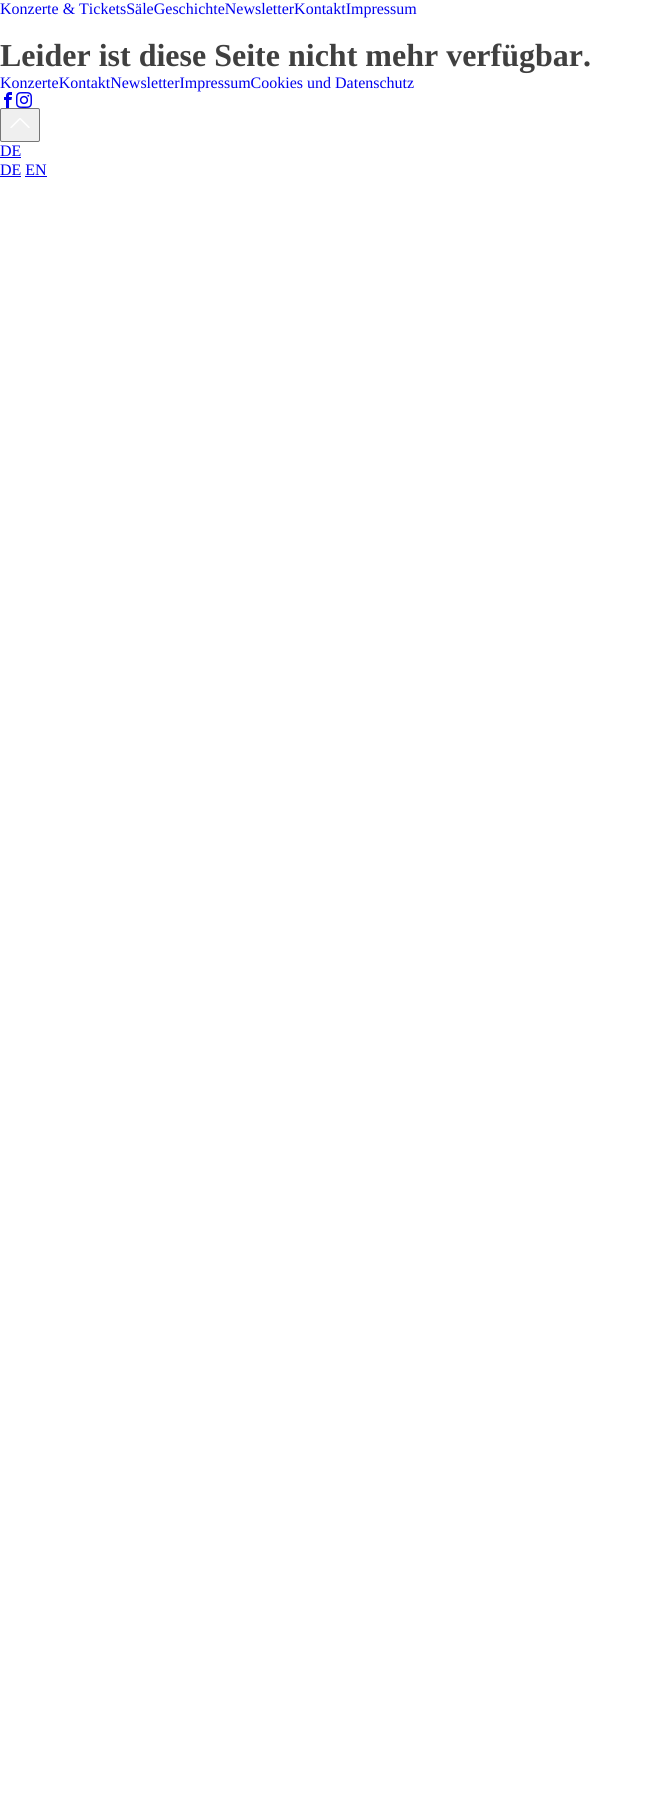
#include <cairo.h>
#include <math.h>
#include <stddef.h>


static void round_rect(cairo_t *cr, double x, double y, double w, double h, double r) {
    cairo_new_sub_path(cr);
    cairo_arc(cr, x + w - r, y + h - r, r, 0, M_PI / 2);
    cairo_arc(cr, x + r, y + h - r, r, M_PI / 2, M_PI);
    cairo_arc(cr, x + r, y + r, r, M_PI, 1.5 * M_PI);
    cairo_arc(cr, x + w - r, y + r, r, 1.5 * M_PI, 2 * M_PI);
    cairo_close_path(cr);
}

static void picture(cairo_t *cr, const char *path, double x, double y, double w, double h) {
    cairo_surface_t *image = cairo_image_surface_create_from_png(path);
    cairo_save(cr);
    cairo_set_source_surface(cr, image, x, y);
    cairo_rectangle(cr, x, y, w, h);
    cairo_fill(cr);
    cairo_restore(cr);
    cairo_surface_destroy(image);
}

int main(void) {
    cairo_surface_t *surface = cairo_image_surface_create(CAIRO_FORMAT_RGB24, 658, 1799);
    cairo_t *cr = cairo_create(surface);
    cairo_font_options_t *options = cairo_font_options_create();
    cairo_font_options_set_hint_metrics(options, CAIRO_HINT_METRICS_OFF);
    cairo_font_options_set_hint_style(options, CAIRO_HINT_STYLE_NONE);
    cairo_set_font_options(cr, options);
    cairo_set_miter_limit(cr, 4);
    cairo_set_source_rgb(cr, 1, 1, 1);
    cairo_paint(cr);
    cairo_select_font_face(cr, "Liberation Serif", CAIRO_FONT_SLANT_NORMAL, CAIRO_FONT_WEIGHT_NORMAL);
    cairo_set_font_size(cr, 16);
    cairo_set_source_rgb(cr, 0, 0, 0.933);
    cairo_move_to(cr, 0, 14);
    cairo_show_text(cr, "Konzerte & TicketsSäleGeschichteNewsletterKontaktImpressum");
    cairo_select_font_face(cr, "Liberation Serif", CAIRO_FONT_SLANT_NORMAL, CAIRO_FONT_WEIGHT_BOLD);
    cairo_set_font_size(cr, 32);
    cairo_set_source_rgb(cr, 0.251, 0.251, 0.251);
    cairo_move_to(cr, 0, 66);
    cairo_show_text(cr, "Leider ist diese Seite nicht mehr verfügbar.");
    cairo_select_font_face(cr, "Liberation Serif", CAIRO_FONT_SLANT_NORMAL, CAIRO_FONT_WEIGHT_NORMAL);
    cairo_set_font_size(cr, 16);
    cairo_set_source_rgb(cr, 0, 0, 0.933);
    cairo_move_to(cr, 0, 88);
    cairo_show_text(cr, "KonzerteKontaktNewsletterImpressumCookies und Datenschutz");
    picture(cr, "img1.png", 4, 92, 8, 16);
    picture(cr, "img2.png", 16, 92, 16, 16);
    cairo_set_source_rgb(cr, 0.937, 0.937, 0.937);
    round_rect(cr, 0.5, 108.5, 39, 33, 1.5);
    cairo_fill_preserve(cr);
    cairo_set_source_rgb(cr, 0.463, 0.463, 0.463);
    cairo_set_line_width(cr, 1);
    cairo_stroke(cr);
    picture(cr, "img3.png", 10, 118, 20, 10);
    cairo_set_source_rgb(cr, 0, 0, 0.933);
    cairo_move_to(cr, 0, 156);
    cairo_show_text(cr, "DE");
    cairo_rectangle(cr, 0, 157, 21, 1);
    cairo_fill(cr);
    cairo_move_to(cr, 0, 175);
    cairo_show_text(cr, "DE EN");
    cairo_rectangle(cr, 0, 176, 21, 1);
    cairo_fill(cr);
    cairo_rectangle(cr, 25, 176, 22, 1);
    cairo_fill(cr);
    cairo_surface_write_to_png(surface, "page.png");
    cairo_font_options_destroy(options);
    cairo_destroy(cr);
    cairo_surface_destroy(surface);
    return 0;
}
